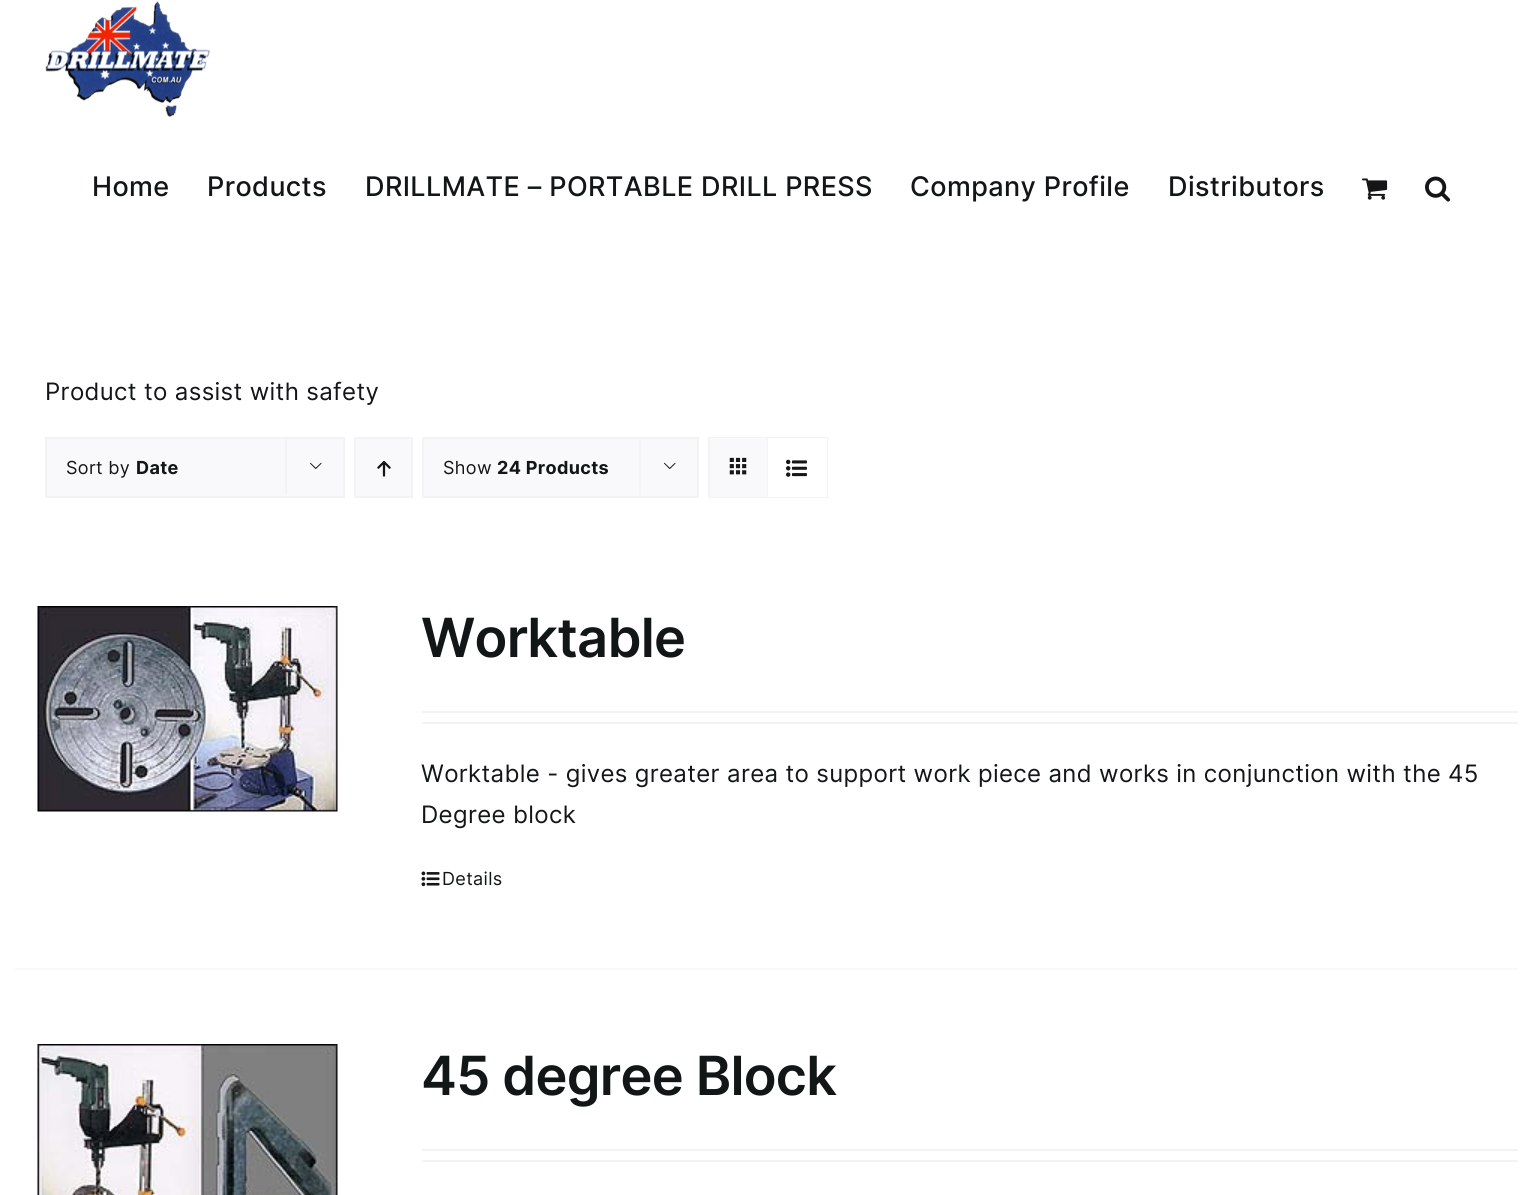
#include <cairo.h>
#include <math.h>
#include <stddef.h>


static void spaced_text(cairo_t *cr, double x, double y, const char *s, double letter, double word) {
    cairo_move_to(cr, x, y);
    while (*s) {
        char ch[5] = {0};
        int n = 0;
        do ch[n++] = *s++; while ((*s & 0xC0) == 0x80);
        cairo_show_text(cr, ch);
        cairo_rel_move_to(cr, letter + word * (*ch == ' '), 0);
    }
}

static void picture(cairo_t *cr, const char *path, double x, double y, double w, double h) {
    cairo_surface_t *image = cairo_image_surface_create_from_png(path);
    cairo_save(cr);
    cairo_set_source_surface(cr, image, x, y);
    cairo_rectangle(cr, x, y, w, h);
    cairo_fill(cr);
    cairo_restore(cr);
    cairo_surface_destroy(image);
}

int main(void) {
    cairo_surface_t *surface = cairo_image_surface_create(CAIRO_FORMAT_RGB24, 1533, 1195);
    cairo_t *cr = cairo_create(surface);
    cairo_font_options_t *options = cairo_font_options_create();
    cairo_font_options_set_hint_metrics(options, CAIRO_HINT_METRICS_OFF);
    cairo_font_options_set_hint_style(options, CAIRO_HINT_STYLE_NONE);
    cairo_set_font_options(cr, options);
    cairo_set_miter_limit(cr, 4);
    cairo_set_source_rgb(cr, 1, 1, 1);
    cairo_paint(cr);
    picture(cr, "img1.png", 45, 1, 165, 116);
    cairo_select_font_face(cr, "Inter Medium", CAIRO_FONT_SLANT_NORMAL, CAIRO_FONT_WEIGHT_NORMAL);
    cairo_set_font_size(cr, 27);
    cairo_set_source_rgb(cr, 0.078, 0.086, 0.09);
    spaced_text(cr, 92, 196, "Home", 0.4, 0);
    spaced_text(cr, 207, 196, "Products", 0.4, 0);
    spaced_text(cr, 365, 196, "DRILLMATE – PORTABLE DRILL PRESS", 0.4, 0);
    spaced_text(cr, 910, 196, "Company Profile", 0.4, 0);
    spaced_text(cr, 1168, 196, "Distributors", 0.4, 0);
    picture(cr, "img2.png", 1362, 178, 26, 22);
    picture(cr, "img3.png", 1425, 176, 26, 26);
    cairo_select_font_face(cr, "Inter", CAIRO_FONT_SLANT_NORMAL, CAIRO_FONT_WEIGHT_NORMAL);
    cairo_set_font_size(cr, 24);
    spaced_text(cr, 45, 400, "Product to assist with safety", 0.35, 0);
    cairo_set_source_rgb(cr, 0.976, 0.976, 0.984);
    cairo_rectangle(cr, 46, 438, 298, 59);
    cairo_fill_preserve(cr);
    cairo_set_source_rgb(cr, 0.949, 0.953, 0.961);
    cairo_stroke(cr);
    cairo_set_font_size(cr, 18);
    cairo_set_source_rgb(cr, 0.078, 0.086, 0.09);
    spaced_text(cr, 66, 474, "Sort by", 0.35, 0);
    cairo_select_font_face(cr, "Inter", CAIRO_FONT_SLANT_NORMAL, CAIRO_FONT_WEIGHT_BOLD);
    spaced_text(cr, 136, 474, "Date", 0.35, 0);
    cairo_set_source_rgb(cr, 0.949, 0.953, 0.961);
    cairo_rectangle(cr, 285, 437, 2, 58);
    cairo_fill(cr);
    picture(cr, "img4.png", 310, 462, 12, 7);
    cairo_set_source_rgb(cr, 0.976, 0.976, 0.984);
    cairo_rectangle(cr, 355, 438, 57, 59);
    cairo_fill_preserve(cr);
    cairo_set_source_rgb(cr, 0.949, 0.953, 0.961);
    cairo_stroke(cr);
    picture(cr, "img5.png", 377, 461, 14, 16);
    cairo_set_source_rgb(cr, 0.976, 0.976, 0.984);
    cairo_rectangle(cr, 423, 438, 275, 59);
    cairo_fill_preserve(cr);
    cairo_set_source_rgb(cr, 0.949, 0.953, 0.961);
    cairo_stroke(cr);
    cairo_select_font_face(cr, "Inter", CAIRO_FONT_SLANT_NORMAL, CAIRO_FONT_WEIGHT_NORMAL);
    cairo_set_source_rgb(cr, 0.078, 0.086, 0.09);
    spaced_text(cr, 443, 474, "Show", 0.35, 0);
    cairo_select_font_face(cr, "Inter", CAIRO_FONT_SLANT_NORMAL, CAIRO_FONT_WEIGHT_BOLD);
    spaced_text(cr, 497, 474, "24 Products", 0.35, 0);
    cairo_set_source_rgb(cr, 0.949, 0.953, 0.961);
    cairo_rectangle(cr, 639, 437, 2, 58);
    cairo_fill(cr);
    picture(cr, "img4.png", 664, 462, 12, 7);
    cairo_rectangle(cr, 709, 438, 118, 59);
    cairo_stroke(cr);
    cairo_set_source_rgb(cr, 0.976, 0.976, 0.984);
    cairo_rectangle(cr, 710, 438, 57, 59);
    cairo_fill(cr);
    cairo_set_source_rgb(cr, 0.949, 0.953, 0.961);
    cairo_rectangle(cr, 767, 438, 1, 59);
    cairo_fill(cr);
    picture(cr, "img6.png", 729, 457, 18, 18);
    cairo_set_source_rgb(cr, 1, 1, 1);
    cairo_rectangle(cr, 768, 438, 59, 59);
    cairo_fill(cr);
    picture(cr, "img7.png", 786, 459, 21, 18);
    cairo_set_source_rgb(cr, 0.976, 0.976, 0.984);
    cairo_rectangle(cr, 15, 968, 1503, 2);
    cairo_fill(cr);
    picture(cr, "img8.png", 37, 606, 301, 206);
    cairo_select_font_face(cr, "Inter SemiBold", CAIRO_FONT_SLANT_NORMAL, CAIRO_FONT_WEIGHT_NORMAL);
    cairo_set_font_size(cr, 54);
    cairo_set_source_rgb(cr, 0.078, 0.086, 0.09);
    spaced_text(cr, 421, 657, "Worktable", -0.75, 0);
    cairo_set_source_rgb(cr, 0.949, 0.953, 0.961);
    cairo_rectangle(cr, 422, 711, 1096, 2);
    cairo_fill(cr);
    cairo_rectangle(cr, 422, 722, 1096, 2);
    cairo_fill(cr);
    cairo_select_font_face(cr, "Inter", CAIRO_FONT_SLANT_NORMAL, CAIRO_FONT_WEIGHT_NORMAL);
    cairo_set_font_size(cr, 24);
    cairo_set_source_rgb(cr, 0.078, 0.086, 0.09);
    spaced_text(cr, 421, 782, "Worktable - gives greater area to support work piece and works in conjunction with the 45", 0.35, 0);
    spaced_text(cr, 421, 823, "Degree block", 0.35, 0);
    picture(cr, "img9.png", 421, 871, 19, 16);
    cairo_set_font_size(cr, 18);
    spaced_text(cr, 442, 885, "Details", 0.35, 0);
    picture(cr, "img10.png", 37, 1044, 301, 151);
    cairo_select_font_face(cr, "Inter SemiBold", CAIRO_FONT_SLANT_NORMAL, CAIRO_FONT_WEIGHT_NORMAL);
    cairo_set_font_size(cr, 54);
    spaced_text(cr, 421, 1095, "45 degree Block", -0.75, 0);
    cairo_set_source_rgb(cr, 0.949, 0.953, 0.961);
    cairo_rectangle(cr, 422, 1149, 1096, 2);
    cairo_fill(cr);
    cairo_rectangle(cr, 422, 1160, 1096, 2);
    cairo_fill(cr);
    cairo_surface_write_to_png(surface, "page.png");
    cairo_font_options_destroy(options);
    cairo_destroy(cr);
    cairo_surface_destroy(surface);
    return 0;
}
